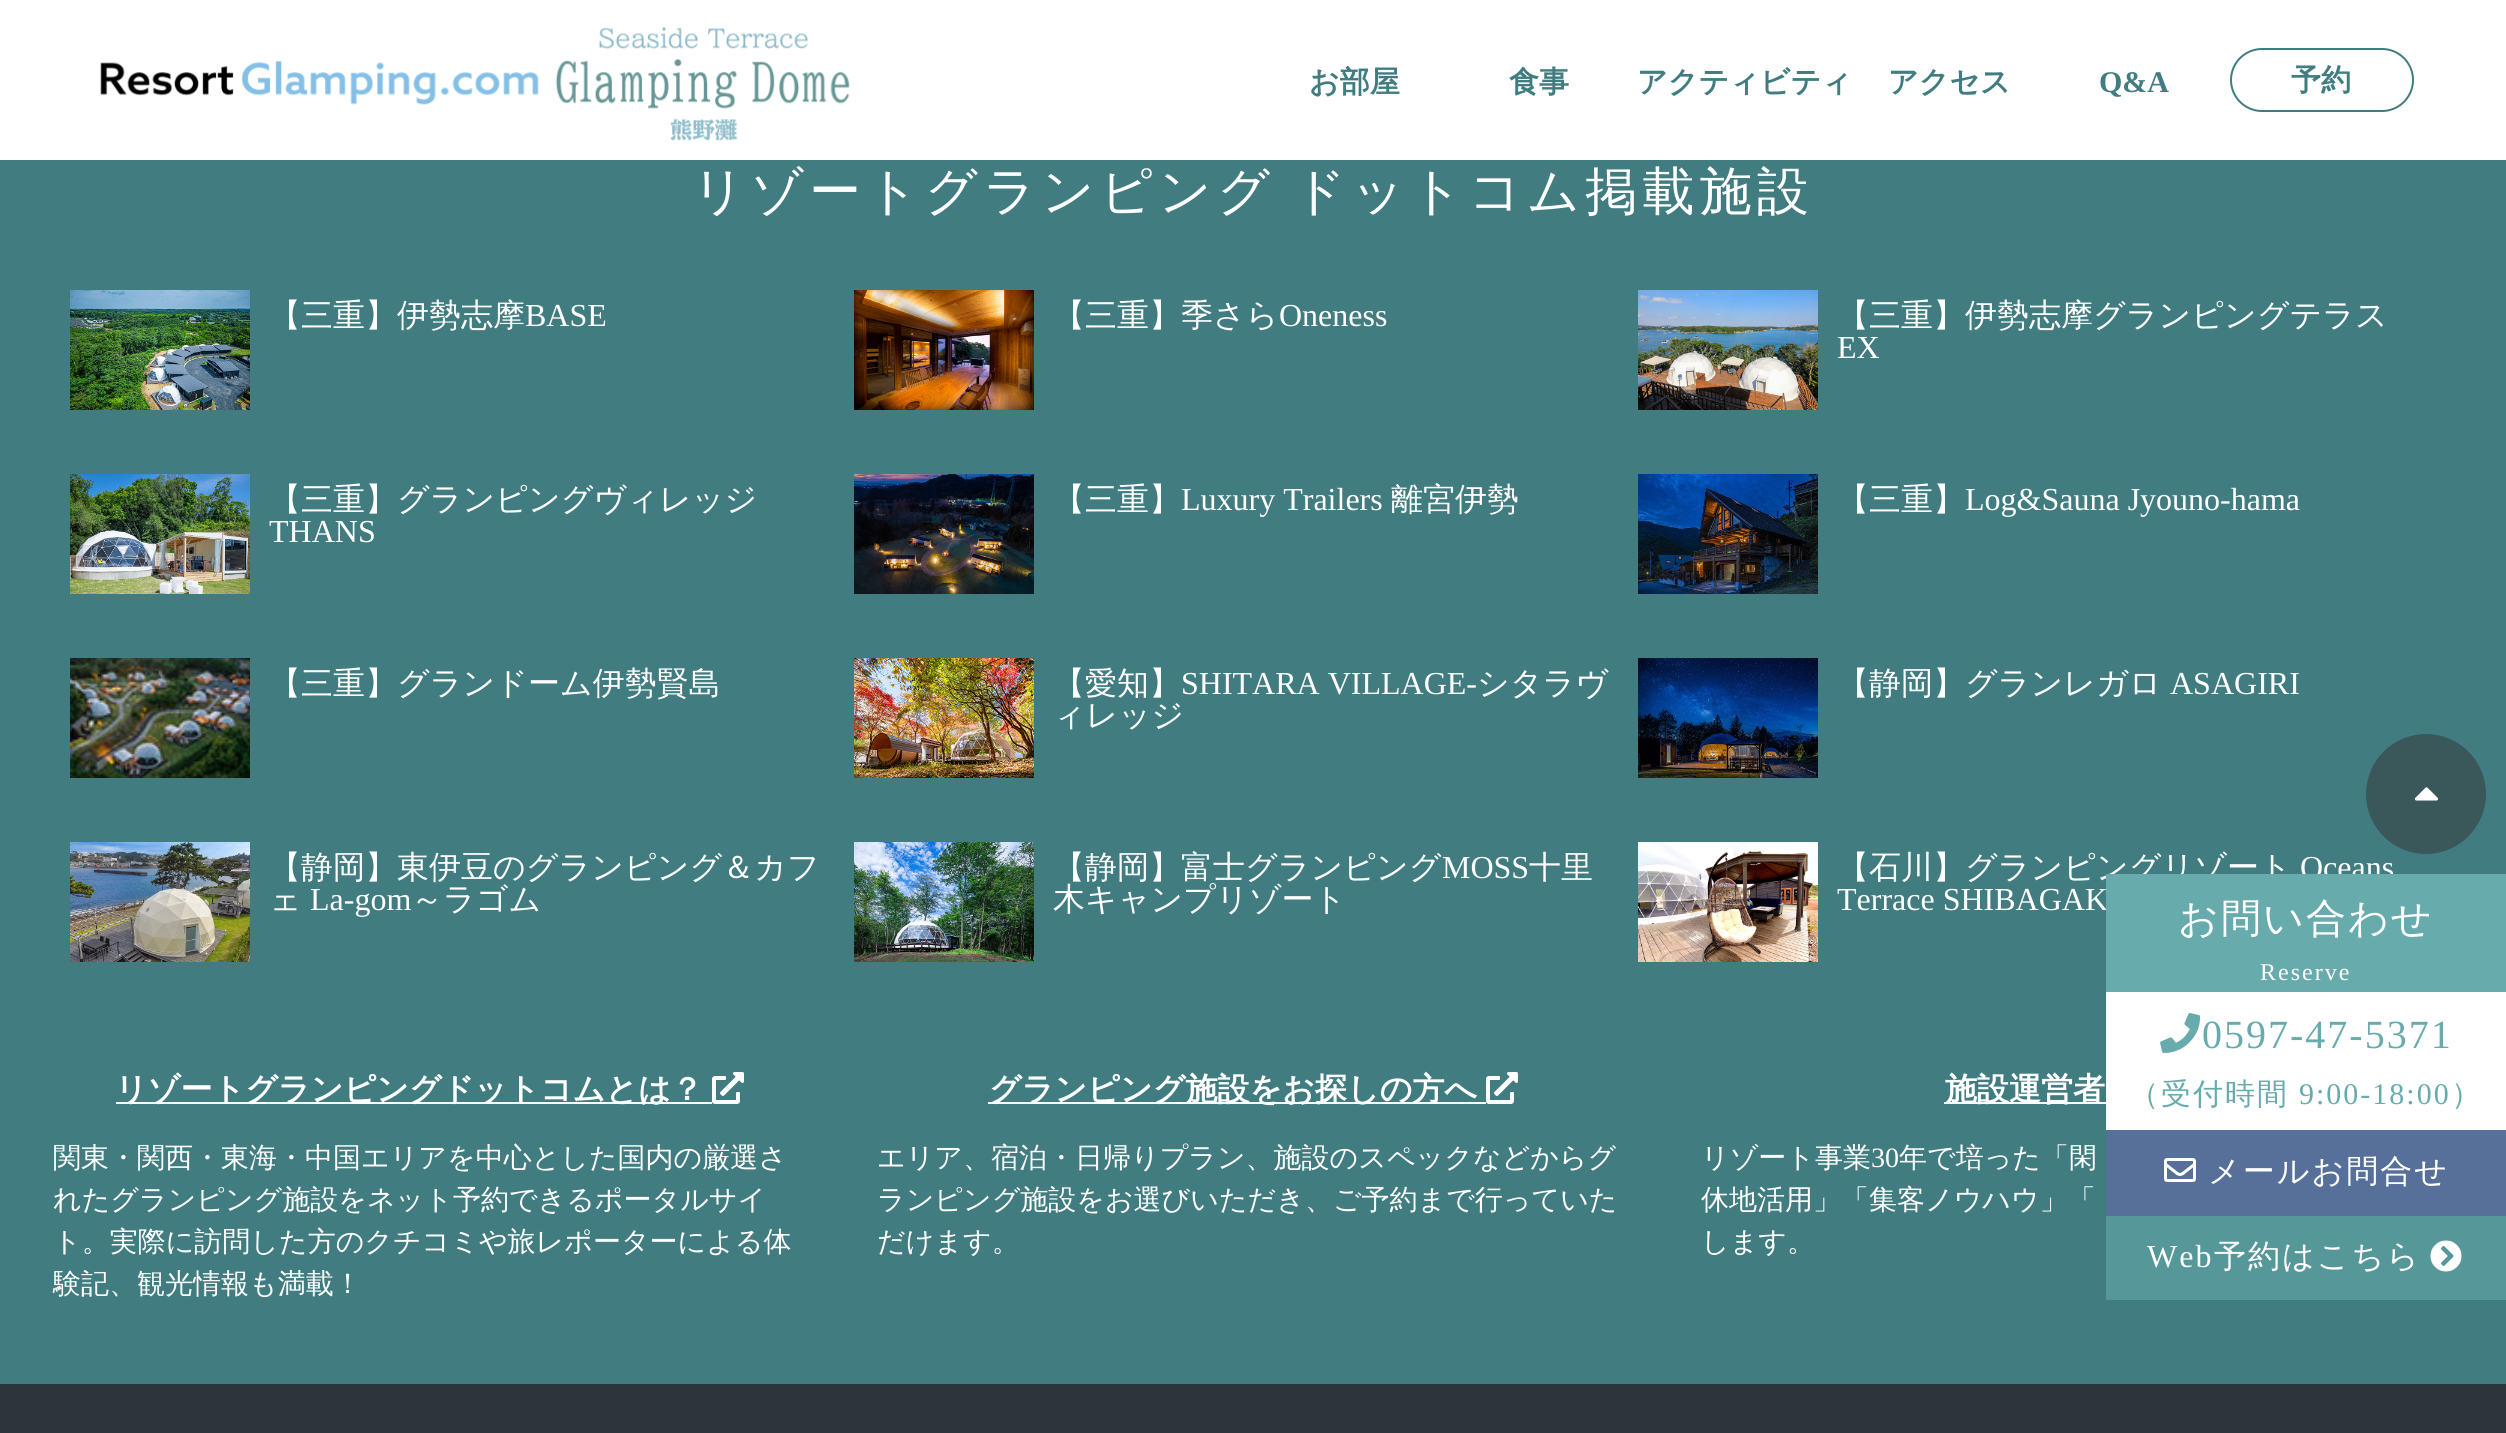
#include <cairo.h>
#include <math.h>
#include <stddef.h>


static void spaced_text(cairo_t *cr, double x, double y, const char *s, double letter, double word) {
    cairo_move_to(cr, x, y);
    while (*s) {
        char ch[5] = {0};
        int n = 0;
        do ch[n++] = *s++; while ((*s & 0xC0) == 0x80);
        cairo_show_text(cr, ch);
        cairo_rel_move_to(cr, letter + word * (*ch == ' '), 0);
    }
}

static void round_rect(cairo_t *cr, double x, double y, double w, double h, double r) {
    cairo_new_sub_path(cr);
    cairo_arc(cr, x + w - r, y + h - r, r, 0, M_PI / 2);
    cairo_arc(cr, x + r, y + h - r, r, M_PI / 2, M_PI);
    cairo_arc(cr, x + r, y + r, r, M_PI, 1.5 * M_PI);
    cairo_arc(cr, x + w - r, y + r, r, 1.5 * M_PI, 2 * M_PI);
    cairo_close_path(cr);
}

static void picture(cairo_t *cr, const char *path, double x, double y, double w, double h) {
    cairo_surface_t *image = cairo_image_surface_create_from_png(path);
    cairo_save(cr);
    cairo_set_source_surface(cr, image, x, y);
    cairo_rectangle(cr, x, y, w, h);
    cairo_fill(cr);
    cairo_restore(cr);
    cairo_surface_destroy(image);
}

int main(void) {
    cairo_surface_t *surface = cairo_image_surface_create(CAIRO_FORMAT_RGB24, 2506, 1433);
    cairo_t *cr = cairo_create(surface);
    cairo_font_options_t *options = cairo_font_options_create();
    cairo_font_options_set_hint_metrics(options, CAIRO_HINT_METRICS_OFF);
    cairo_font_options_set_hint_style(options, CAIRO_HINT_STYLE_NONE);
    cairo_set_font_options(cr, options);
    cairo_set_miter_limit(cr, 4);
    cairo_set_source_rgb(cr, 0.255, 0.49, 0.502);
    cairo_paint(cr);
    cairo_set_source_rgb(cr, 1, 1, 1);
    cairo_rectangle(cr, 0, 0, 2506, 160);
    cairo_fill(cr);
    picture(cr, "img1.png", 100, 27, 750, 114);
    cairo_select_font_face(cr, "WenQuanYi Zen Hei", CAIRO_FONT_SLANT_NORMAL, CAIRO_FONT_WEIGHT_BOLD);
    cairo_set_font_size(cr, 30);
    cairo_set_source_rgb(cr, 0.255, 0.49, 0.502);
    cairo_move_to(cr, 1309, 92);
    cairo_show_text(cr, "お部屋");
    cairo_move_to(cr, 1509, 92);
    cairo_show_text(cr, "食事");
    cairo_move_to(cr, 1637, 92);
    cairo_show_text(cr, "アクティビティ");
    cairo_move_to(cr, 1888, 92);
    cairo_show_text(cr, "アクセス");
    cairo_select_font_face(cr, "Liberation Serif", CAIRO_FONT_SLANT_NORMAL, CAIRO_FONT_WEIGHT_BOLD);
    cairo_move_to(cr, 2099, 92);
    cairo_show_text(cr, "Q&A");
    round_rect(cr, 2231, 49, 182, 62, 31);
    cairo_stroke(cr);
    cairo_select_font_face(cr, "WenQuanYi Zen Hei", CAIRO_FONT_SLANT_NORMAL, CAIRO_FONT_WEIGHT_BOLD);
    cairo_move_to(cr, 2291, 90);
    cairo_show_text(cr, "予約");
    cairo_select_font_face(cr, "WenQuanYi Zen Hei Medium", CAIRO_FONT_SLANT_NORMAL, CAIRO_FONT_WEIGHT_NORMAL);
    cairo_set_font_size(cr, 52);
    cairo_set_source_rgb(cr, 1, 1, 1);
    spaced_text(cr, 692, 209, "リゾートグランピング", 5.25, 0);
    spaced_text(cr, 1293, 209, "ドットコム掲載施設", 5.25, 0);
    picture(cr, "img2.png", 70, 290, 180, 120);
    cairo_set_font_size(cr, 32);
    cairo_move_to(cr, 269, 326);
    cairo_show_text(cr, "【三重】伊勢志摩");
    cairo_select_font_face(cr, "Liberation Serif", CAIRO_FONT_SLANT_NORMAL, CAIRO_FONT_WEIGHT_NORMAL);
    cairo_move_to(cr, 525, 326);
    cairo_show_text(cr, "BASE");
    picture(cr, "img3.png", 854, 290, 180, 120);
    cairo_select_font_face(cr, "WenQuanYi Zen Hei Medium", CAIRO_FONT_SLANT_NORMAL, CAIRO_FONT_WEIGHT_NORMAL);
    cairo_move_to(cr, 1053, 326);
    cairo_show_text(cr, "【三重】季さら");
    cairo_select_font_face(cr, "Liberation Serif", CAIRO_FONT_SLANT_NORMAL, CAIRO_FONT_WEIGHT_NORMAL);
    cairo_move_to(cr, 1279, 326);
    cairo_show_text(cr, "Oneness");
    picture(cr, "img4.png", 1638, 290, 180, 120);
    cairo_select_font_face(cr, "WenQuanYi Zen Hei Medium", CAIRO_FONT_SLANT_NORMAL, CAIRO_FONT_WEIGHT_NORMAL);
    cairo_move_to(cr, 1837, 326);
    cairo_show_text(cr, "【三重】伊勢志摩グランピングテラス");
    cairo_select_font_face(cr, "Liberation Serif", CAIRO_FONT_SLANT_NORMAL, CAIRO_FONT_WEIGHT_NORMAL);
    cairo_move_to(cr, 1837, 358);
    cairo_show_text(cr, "EX");
    picture(cr, "img5.png", 70, 474, 180, 120);
    cairo_select_font_face(cr, "WenQuanYi Zen Hei Medium", CAIRO_FONT_SLANT_NORMAL, CAIRO_FONT_WEIGHT_NORMAL);
    cairo_move_to(cr, 269, 510);
    cairo_show_text(cr, "【三重】グランピングヴィレッジ");
    cairo_select_font_face(cr, "Liberation Serif", CAIRO_FONT_SLANT_NORMAL, CAIRO_FONT_WEIGHT_NORMAL);
    cairo_move_to(cr, 269, 542);
    cairo_show_text(cr, "THANS");
    picture(cr, "img6.png", 854, 474, 180, 120);
    cairo_select_font_face(cr, "WenQuanYi Zen Hei Medium", CAIRO_FONT_SLANT_NORMAL, CAIRO_FONT_WEIGHT_NORMAL);
    cairo_move_to(cr, 1053, 510);
    cairo_show_text(cr, "【三重】");
    cairo_select_font_face(cr, "Liberation Serif", CAIRO_FONT_SLANT_NORMAL, CAIRO_FONT_WEIGHT_NORMAL);
    cairo_move_to(cr, 1181, 510);
    cairo_show_text(cr, "Luxury Trailers");
    cairo_select_font_face(cr, "WenQuanYi Zen Hei Medium", CAIRO_FONT_SLANT_NORMAL, CAIRO_FONT_WEIGHT_NORMAL);
    cairo_move_to(cr, 1391, 510);
    cairo_show_text(cr, "離宮伊勢");
    picture(cr, "img7.png", 1638, 474, 180, 120);
    cairo_move_to(cr, 1837, 510);
    cairo_show_text(cr, "【三重】");
    cairo_select_font_face(cr, "Liberation Serif", CAIRO_FONT_SLANT_NORMAL, CAIRO_FONT_WEIGHT_NORMAL);
    cairo_move_to(cr, 1965, 510);
    cairo_show_text(cr, "Log&Sauna Jyouno-hama");
    picture(cr, "img8.png", 70, 658, 180, 120);
    cairo_select_font_face(cr, "WenQuanYi Zen Hei Medium", CAIRO_FONT_SLANT_NORMAL, CAIRO_FONT_WEIGHT_NORMAL);
    cairo_move_to(cr, 269, 694);
    cairo_show_text(cr, "【三重】グランドーム伊勢賢島");
    picture(cr, "img9.png", 854, 658, 180, 120);
    cairo_move_to(cr, 1053, 694);
    cairo_show_text(cr, "【愛知】");
    cairo_select_font_face(cr, "Liberation Serif", CAIRO_FONT_SLANT_NORMAL, CAIRO_FONT_WEIGHT_NORMAL);
    cairo_move_to(cr, 1181, 694);
    cairo_show_text(cr, "SHITARA VILLAGE-");
    cairo_select_font_face(cr, "WenQuanYi Zen Hei Medium", CAIRO_FONT_SLANT_NORMAL, CAIRO_FONT_WEIGHT_NORMAL);
    cairo_move_to(cr, 1477, 694);
    cairo_show_text(cr, "シタラヴ");
    cairo_move_to(cr, 1053, 726);
    cairo_show_text(cr, "ィレッジ");
    picture(cr, "img10.png", 1638, 658, 180, 120);
    cairo_move_to(cr, 1837, 694);
    cairo_show_text(cr, "【静岡】グランレガロ");
    cairo_select_font_face(cr, "Liberation Serif", CAIRO_FONT_SLANT_NORMAL, CAIRO_FONT_WEIGHT_NORMAL);
    cairo_move_to(cr, 2170, 694);
    cairo_show_text(cr, "ASAGIRI");
    picture(cr, "img11.png", 70, 842, 180, 120);
    cairo_select_font_face(cr, "WenQuanYi Zen Hei Medium", CAIRO_FONT_SLANT_NORMAL, CAIRO_FONT_WEIGHT_NORMAL);
    cairo_move_to(cr, 269, 878);
    cairo_show_text(cr, "【静岡】東伊豆のグランピング＆カフ");
    cairo_move_to(cr, 269, 910);
    cairo_show_text(cr, "ェ");
    cairo_select_font_face(cr, "Liberation Serif", CAIRO_FONT_SLANT_NORMAL, CAIRO_FONT_WEIGHT_NORMAL);
    cairo_move_to(cr, 310, 910);
    cairo_show_text(cr, "La-gom");
    cairo_select_font_face(cr, "WenQuanYi Zen Hei Medium", CAIRO_FONT_SLANT_NORMAL, CAIRO_FONT_WEIGHT_NORMAL);
    cairo_move_to(cr, 411, 910);
    cairo_show_text(cr, "～ラゴム");
    picture(cr, "img12.png", 854, 842, 180, 120);
    cairo_move_to(cr, 1053, 878);
    cairo_show_text(cr, "【静岡】富士グランピング");
    cairo_select_font_face(cr, "Liberation Serif", CAIRO_FONT_SLANT_NORMAL, CAIRO_FONT_WEIGHT_NORMAL);
    cairo_move_to(cr, 1442, 878);
    cairo_show_text(cr, "MOSS");
    cairo_select_font_face(cr, "WenQuanYi Zen Hei Medium", CAIRO_FONT_SLANT_NORMAL, CAIRO_FONT_WEIGHT_NORMAL);
    cairo_move_to(cr, 1529, 878);
    cairo_show_text(cr, "十里");
    cairo_move_to(cr, 1053, 910);
    cairo_show_text(cr, "木キャンプリゾート");
    picture(cr, "img13.png", 1638, 842, 180, 120);
    cairo_move_to(cr, 1837, 878);
    cairo_show_text(cr, "【石川】グランピングリゾート");
    cairo_select_font_face(cr, "Liberation Serif", CAIRO_FONT_SLANT_NORMAL, CAIRO_FONT_WEIGHT_NORMAL);
    cairo_move_to(cr, 2300, 878);
    cairo_show_text(cr, "Oceans");
    cairo_move_to(cr, 1837, 910);
    cairo_show_text(cr, "Terrace SHIBAGAK");
    cairo_rectangle(cr, 116, 1102, 596, 2);
    cairo_fill(cr);
    cairo_select_font_face(cr, "WenQuanYi Zen Hei", CAIRO_FONT_SLANT_NORMAL, CAIRO_FONT_WEIGHT_BOLD);
    cairo_move_to(cr, 115, 1100);
    cairo_show_text(cr, "リゾートグランピングドットコムとは？");
    picture(cr, "img14.png", 712, 1072, 32, 32);
    cairo_select_font_face(cr, "WenQuanYi Zen Hei Medium", CAIRO_FONT_SLANT_NORMAL, CAIRO_FONT_WEIGHT_NORMAL);
    cairo_set_font_size(cr, 28);
    cairo_move_to(cr, 53, 1167);
    cairo_show_text(cr, "関東・関西・東海・中国エリアを中心とした国内の厳選さ");
    cairo_move_to(cr, 53, 1209);
    cairo_show_text(cr, "れたグランピング施設をネット予約できるポータルサイ");
    cairo_move_to(cr, 53, 1251);
    cairo_show_text(cr, "ト。実際に訪問した方のクチコミや旅レポーターによる体");
    cairo_move_to(cr, 53, 1293);
    cairo_show_text(cr, "験記、観光情報も満載！");
    cairo_rectangle(cr, 988, 1102, 498, 2);
    cairo_fill(cr);
    cairo_select_font_face(cr, "WenQuanYi Zen Hei", CAIRO_FONT_SLANT_NORMAL, CAIRO_FONT_WEIGHT_BOLD);
    cairo_set_font_size(cr, 32);
    cairo_move_to(cr, 989, 1100);
    cairo_show_text(cr, "グランピング施設をお探しの方へ");
    picture(cr, "img14.png", 1486, 1072, 32, 32);
    cairo_select_font_face(cr, "WenQuanYi Zen Hei Medium", CAIRO_FONT_SLANT_NORMAL, CAIRO_FONT_WEIGHT_NORMAL);
    cairo_set_font_size(cr, 28);
    cairo_move_to(cr, 877, 1167);
    cairo_show_text(cr, "エリア、宿泊・日帰りプラン、施設のスペックなどからグ");
    cairo_move_to(cr, 877, 1209);
    cairo_show_text(cr, "ランピング施設をお選びいただき、ご予約まで行っていた");
    cairo_move_to(cr, 877, 1251);
    cairo_show_text(cr, "だけます。");
    cairo_rectangle(cr, 1944, 1102, 162, 2);
    cairo_fill(cr);
    cairo_select_font_face(cr, "WenQuanYi Zen Hei", CAIRO_FONT_SLANT_NORMAL, CAIRO_FONT_WEIGHT_BOLD);
    cairo_set_font_size(cr, 32);
    cairo_move_to(cr, 1945, 1100);
    cairo_show_text(cr, "施設運営者");
    cairo_select_font_face(cr, "WenQuanYi Zen Hei Medium", CAIRO_FONT_SLANT_NORMAL, CAIRO_FONT_WEIGHT_NORMAL);
    cairo_set_font_size(cr, 28);
    cairo_move_to(cr, 1701, 1167);
    cairo_show_text(cr, "リゾート事業");
    cairo_select_font_face(cr, "Liberation Serif", CAIRO_FONT_SLANT_NORMAL, CAIRO_FONT_WEIGHT_NORMAL);
    cairo_move_to(cr, 1871, 1167);
    cairo_show_text(cr, "30");
    cairo_select_font_face(cr, "WenQuanYi Zen Hei Medium", CAIRO_FONT_SLANT_NORMAL, CAIRO_FONT_WEIGHT_NORMAL);
    cairo_move_to(cr, 1899, 1167);
    cairo_show_text(cr, "年で培った「閑");
    cairo_move_to(cr, 1701, 1209);
    cairo_show_text(cr, "休地活用」「集客ノウハウ」「");
    cairo_move_to(cr, 1701, 1251);
    cairo_show_text(cr, "します。");
    cairo_rectangle(cr, 2106, 992, 400, 138);
    cairo_fill(cr);
    cairo_set_source_rgb(cr, 0.408, 0.671, 0.678);
    cairo_rectangle(cr, 2106, 874, 400, 118);
    cairo_fill(cr);
    cairo_set_font_size(cr, 40);
    cairo_set_source_rgb(cr, 1, 1, 1);
    spaced_text(cr, 2178, 932, "お問い合わせ", 2, 0);
    cairo_select_font_face(cr, "Liberation Serif", CAIRO_FONT_SLANT_NORMAL, CAIRO_FONT_WEIGHT_NORMAL);
    cairo_set_font_size(cr, 24);
    spaced_text(cr, 2260, 980, "Reserve", 2, 0);
    picture(cr, "img15.png", 2160, 1013, 41, 40);
    cairo_set_font_size(cr, 40);
    cairo_set_source_rgb(cr, 0.408, 0.671, 0.678);
    spaced_text(cr, 2202, 1048, "0597-47-5371", 2, 0);
    cairo_select_font_face(cr, "WenQuanYi Zen Hei Medium", CAIRO_FONT_SLANT_NORMAL, CAIRO_FONT_WEIGHT_NORMAL);
    cairo_set_font_size(cr, 30);
    spaced_text(cr, 2129, 1104, "（受付時間", 2, 0);
    cairo_select_font_face(cr, "Liberation Serif", CAIRO_FONT_SLANT_NORMAL, CAIRO_FONT_WEIGHT_NORMAL);
    spaced_text(cr, 2299, 1104, "9:00-18:00", 2, 0);
    cairo_select_font_face(cr, "WenQuanYi Zen Hei Medium", CAIRO_FONT_SLANT_NORMAL, CAIRO_FONT_WEIGHT_NORMAL);
    spaced_text(cr, 2451, 1104, "）", 2, 0);
    cairo_set_source_rgb(cr, 0.337, 0.439, 0.6);
    cairo_rectangle(cr, 2106, 1130, 400, 86);
    cairo_fill(cr);
    picture(cr, "img16.png", 2164, 1158, 32, 24);
    cairo_set_font_size(cr, 32);
    cairo_set_source_rgb(cr, 1, 1, 1);
    spaced_text(cr, 2208, 1182, "メールお問合せ", 2, 0);
    cairo_set_source_rgb(cr, 0.337, 0.592, 0.6);
    cairo_rectangle(cr, 2106, 1216, 400, 84);
    cairo_fill(cr);
    cairo_select_font_face(cr, "Liberation Serif", CAIRO_FONT_SLANT_NORMAL, CAIRO_FONT_WEIGHT_NORMAL);
    cairo_set_source_rgb(cr, 1, 1, 1);
    spaced_text(cr, 2147, 1267, "Web", 2, 0);
    cairo_select_font_face(cr, "WenQuanYi Zen Hei Medium", CAIRO_FONT_SLANT_NORMAL, CAIRO_FONT_WEIGHT_NORMAL);
    spaced_text(cr, 2214, 1267, "予約はこちら", 2, 0);
    picture(cr, "img17.png", 2430, 1240, 32, 32);
    cairo_set_source_rgb(cr, 0.173, 0.208, 0.227);
    cairo_rectangle(cr, 0, 1384, 2506, 49);
    cairo_fill(cr);
    cairo_set_source_rgb(cr, 0.227, 0.345, 0.349);
    cairo_arc(cr, 2426, 794, 60, 0, 2 * M_PI);
    cairo_fill(cr);
    picture(cr, "img18.png", 2414, 787, 25, 14);
    cairo_surface_write_to_png(surface, "page.png");
    cairo_font_options_destroy(options);
    cairo_destroy(cr);
    cairo_surface_destroy(surface);
    return 0;
}
